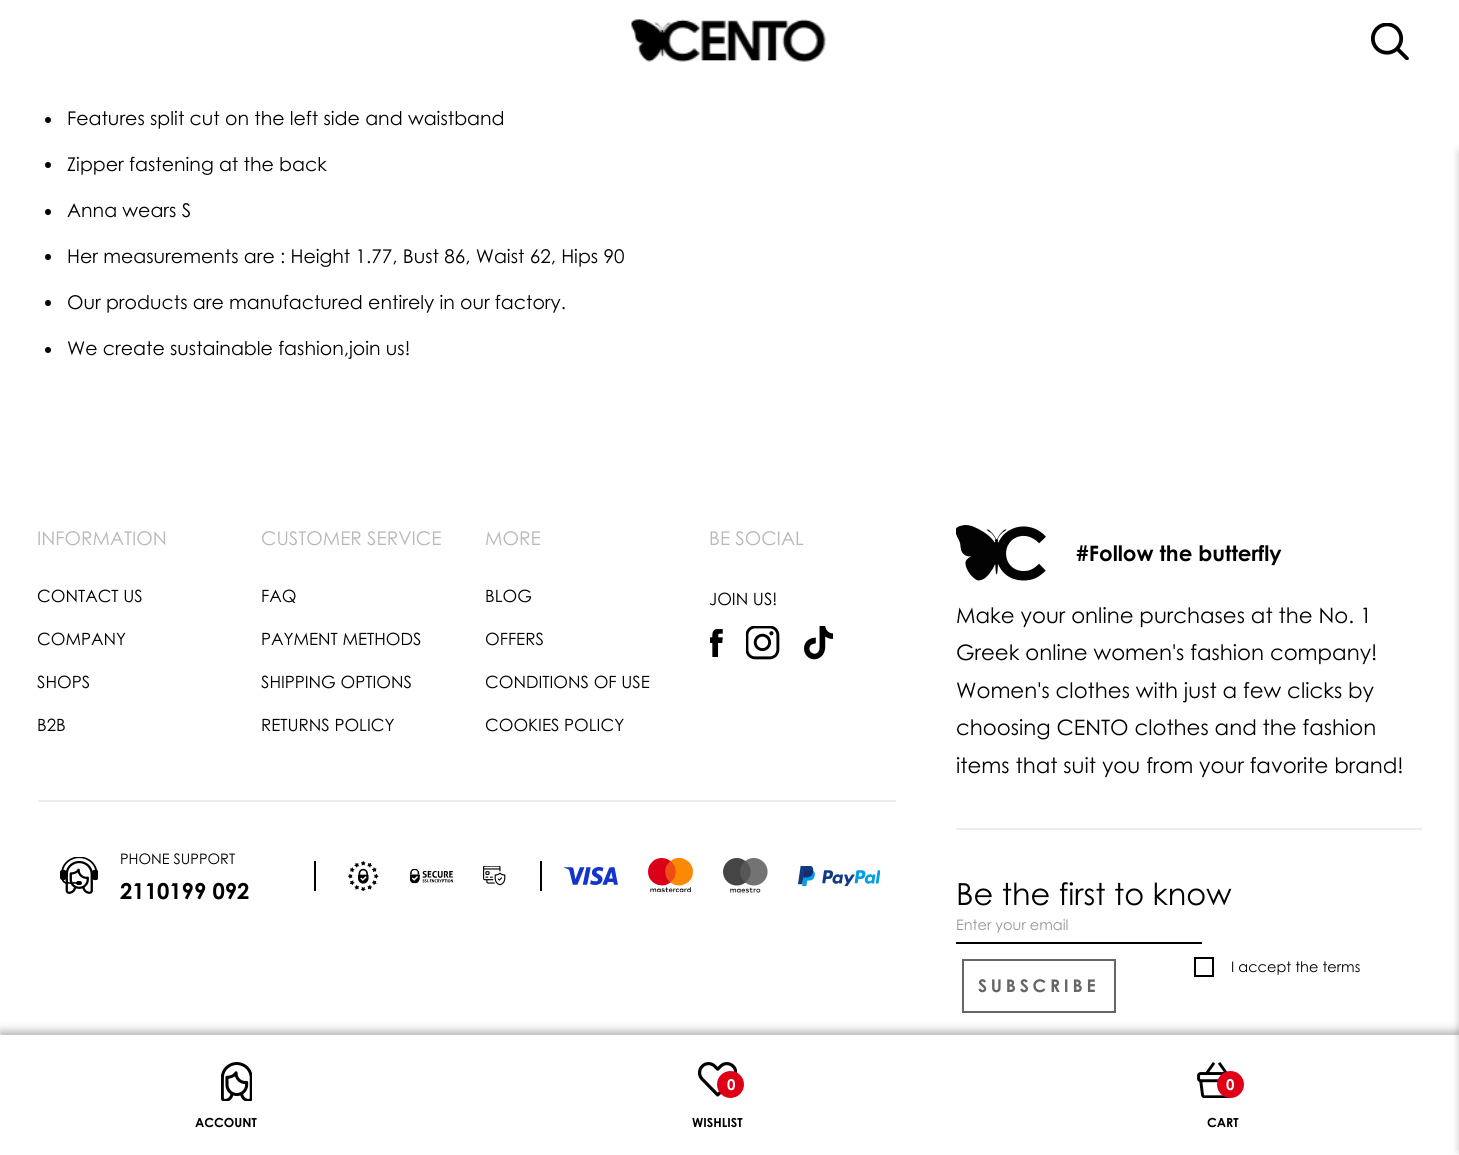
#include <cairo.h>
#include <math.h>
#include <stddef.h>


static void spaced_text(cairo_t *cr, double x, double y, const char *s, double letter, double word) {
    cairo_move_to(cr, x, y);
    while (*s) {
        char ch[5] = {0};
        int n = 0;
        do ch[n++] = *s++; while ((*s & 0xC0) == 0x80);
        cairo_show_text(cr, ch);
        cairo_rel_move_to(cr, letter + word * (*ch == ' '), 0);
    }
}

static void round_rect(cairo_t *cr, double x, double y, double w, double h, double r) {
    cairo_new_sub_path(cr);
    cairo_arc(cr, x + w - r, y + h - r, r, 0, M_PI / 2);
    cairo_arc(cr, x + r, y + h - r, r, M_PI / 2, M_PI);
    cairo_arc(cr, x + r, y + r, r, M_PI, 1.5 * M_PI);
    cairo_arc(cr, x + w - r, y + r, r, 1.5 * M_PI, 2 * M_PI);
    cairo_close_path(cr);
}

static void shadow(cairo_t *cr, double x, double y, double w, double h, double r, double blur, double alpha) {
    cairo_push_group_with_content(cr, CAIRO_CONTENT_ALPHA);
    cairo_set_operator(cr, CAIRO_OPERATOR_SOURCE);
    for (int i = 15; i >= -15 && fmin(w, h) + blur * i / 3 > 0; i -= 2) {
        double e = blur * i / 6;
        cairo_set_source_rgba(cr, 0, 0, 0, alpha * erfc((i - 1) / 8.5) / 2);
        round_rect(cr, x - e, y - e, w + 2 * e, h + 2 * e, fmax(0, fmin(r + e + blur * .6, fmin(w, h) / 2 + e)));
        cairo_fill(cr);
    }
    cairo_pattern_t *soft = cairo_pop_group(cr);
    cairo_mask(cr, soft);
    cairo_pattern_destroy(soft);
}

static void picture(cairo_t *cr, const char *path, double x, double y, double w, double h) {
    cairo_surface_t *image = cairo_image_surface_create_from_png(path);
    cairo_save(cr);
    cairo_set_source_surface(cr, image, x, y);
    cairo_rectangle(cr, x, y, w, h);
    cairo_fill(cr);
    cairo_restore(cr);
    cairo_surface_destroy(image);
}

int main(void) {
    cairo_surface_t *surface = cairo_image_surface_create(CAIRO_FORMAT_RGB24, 1459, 1155);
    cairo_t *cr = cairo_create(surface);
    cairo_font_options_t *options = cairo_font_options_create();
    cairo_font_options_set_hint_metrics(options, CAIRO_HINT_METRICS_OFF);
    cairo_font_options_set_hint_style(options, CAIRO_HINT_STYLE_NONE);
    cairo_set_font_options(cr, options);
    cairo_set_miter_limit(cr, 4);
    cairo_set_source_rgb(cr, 1, 1, 1);
    cairo_paint(cr);
    cairo_set_source_rgb(cr, 0, 0, 0);
    cairo_arc(cr, 48, 120, 3, 0, 2 * M_PI);
    cairo_fill(cr);
    cairo_select_font_face(cr, "Century Gothic", CAIRO_FONT_SLANT_NORMAL, CAIRO_FONT_WEIGHT_NORMAL);
    cairo_set_font_size(cr, 18.95);
    cairo_move_to(cr, 67, 125);
    cairo_show_text(cr, "Features split cut on the left side and waistband");
    cairo_new_path(cr);
    cairo_arc(cr, 48, 165, 3, 0, 2 * M_PI);
    cairo_fill(cr);
    cairo_move_to(cr, 67, 171);
    cairo_show_text(cr, "Zipper fastening at the back");
    cairo_new_path(cr);
    cairo_arc(cr, 48, 212, 3, 0, 2 * M_PI);
    cairo_fill(cr);
    cairo_move_to(cr, 67, 217);
    cairo_show_text(cr, "Anna wears S");
    cairo_new_path(cr);
    cairo_arc(cr, 48, 257, 3, 0, 2 * M_PI);
    cairo_fill(cr);
    cairo_move_to(cr, 67, 263);
    cairo_show_text(cr, "Her measurements are : Height 1.77, Bust 86, Waist 62, Hips 90");
    cairo_new_path(cr);
    cairo_arc(cr, 48, 303, 3, 0, 2 * M_PI);
    cairo_fill(cr);
    cairo_move_to(cr, 67, 309);
    cairo_show_text(cr, "Οur products are manufactured entirely in our factory.");
    cairo_new_path(cr);
    cairo_arc(cr, 48, 350, 3, 0, 2 * M_PI);
    cairo_fill(cr);
    cairo_move_to(cr, 67, 355);
    cairo_show_text(cr, "We create sustainable fashion,join us!");
    cairo_set_source_rgb(cr, 0, 0, 0);
    shadow(cr, 0, 1031, 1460, 120, 0, 4.5, 0.29);
    cairo_set_source_rgb(cr, 1, 1, 1);
    cairo_rectangle(cr, 0, 1035, 1459, 120);
    cairo_fill(cr);
    cairo_set_source_rgb(cr, 0, 0, 0);
    shadow(cr, 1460, 152, 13, 999, 0, 4.5, 0.29);
    cairo_set_source_rgb(cr, 0.929, 0.929, 0.929);
    cairo_rectangle(cr, 38, 800, 858, 2);
    cairo_fill(cr);
    cairo_set_source_rgb(cr, 0.722, 0.722, 0.722);
    cairo_move_to(cr, 37, 545);
    cairo_show_text(cr, "INFORMATION");
    cairo_set_font_size(cr, 16.9);
    cairo_set_source_rgb(cr, 0, 0, 0);
    cairo_move_to(cr, 37, 602);
    cairo_show_text(cr, "CONTACT US");
    cairo_move_to(cr, 37, 645);
    cairo_show_text(cr, "COMPANY");
    cairo_move_to(cr, 37, 688);
    cairo_show_text(cr, "SHOPS");
    cairo_move_to(cr, 37, 731);
    cairo_show_text(cr, "B2B");
    cairo_set_font_size(cr, 18.95);
    cairo_set_source_rgb(cr, 0.722, 0.722, 0.722);
    cairo_move_to(cr, 261, 545);
    cairo_show_text(cr, "CUSTOMER SERVICE");
    cairo_set_font_size(cr, 16.9);
    cairo_set_source_rgb(cr, 0, 0, 0);
    cairo_move_to(cr, 261, 602);
    cairo_show_text(cr, "FAQ");
    cairo_move_to(cr, 261, 645);
    cairo_show_text(cr, "PAYMENT METHODS");
    cairo_move_to(cr, 261, 688);
    cairo_show_text(cr, "SHIPPING OPTIONS");
    cairo_move_to(cr, 261, 731);
    cairo_show_text(cr, "RETURNS POLICY");
    cairo_set_font_size(cr, 18.95);
    cairo_set_source_rgb(cr, 0.722, 0.722, 0.722);
    cairo_move_to(cr, 485, 545);
    cairo_show_text(cr, "MORE");
    cairo_set_font_size(cr, 16.9);
    cairo_set_source_rgb(cr, 0, 0, 0);
    cairo_move_to(cr, 485, 602);
    cairo_show_text(cr, "BLOG");
    cairo_move_to(cr, 485, 645);
    cairo_show_text(cr, "OFFERS");
    cairo_move_to(cr, 485, 688);
    cairo_show_text(cr, "CONDITIONS OF USE");
    cairo_move_to(cr, 485, 731);
    cairo_show_text(cr, "COOKIES POLICY");
    cairo_set_font_size(cr, 18.95);
    cairo_set_source_rgb(cr, 0.722, 0.722, 0.722);
    cairo_move_to(cr, 709, 545);
    cairo_show_text(cr, "BE SOCIAL");
    cairo_set_font_size(cr, 16.9);
    cairo_set_source_rgb(cr, 0, 0, 0);
    cairo_move_to(cr, 709, 605);
    cairo_show_text(cr, "JOIN US!");
    picture(cr, "img1.png", 710, 629, 13, 28);
    picture(cr, "img2.png", 746, 626, 34, 34);
    picture(cr, "img3.png", 804, 626, 30, 34);
    picture(cr, "img4.png", 60, 857, 38, 37);
    cairo_set_font_size(cr, 14.5);
    cairo_move_to(cr, 120, 864);
    cairo_show_text(cr, "PHONE SUPPORT");
    cairo_select_font_face(cr, "Century Gothic", CAIRO_FONT_SLANT_NORMAL, CAIRO_FONT_WEIGHT_BOLD);
    cairo_set_font_size(cr, 22);
    cairo_move_to(cr, 120, 899);
    cairo_show_text(cr, "2110199 092");
    cairo_rectangle(cr, 540, 861, 2, 30);
    cairo_fill(cr);
    cairo_rectangle(cr, 314, 861, 2, 30);
    cairo_fill(cr);
    picture(cr, "img5.png", 348, 861, 31, 30);
    picture(cr, "img6.png", 410, 869, 43, 15);
    picture(cr, "img7.png", 483, 866, 23, 20);
    picture(cr, "img8.png", 564, 867, 54, 18);
    picture(cr, "img9.png", 648, 858, 45, 35);
    picture(cr, "img10.png", 723, 858, 45, 35);
    picture(cr, "img11.png", 798, 866, 83, 21);
    cairo_set_source_rgb(cr, 0.929, 0.929, 0.929);
    cairo_rectangle(cr, 956, 828, 466, 2);
    cairo_fill(cr);
    picture(cr, "img12.png", 956, 525, 90, 56);
    cairo_set_font_size(cr, 21.3);
    cairo_set_source_rgb(cr, 0, 0, 0);
    cairo_move_to(cr, 1076, 561);
    cairo_show_text(cr, "#Follow the butterfly");
    cairo_select_font_face(cr, "Century Gothic", CAIRO_FONT_SLANT_NORMAL, CAIRO_FONT_WEIGHT_NORMAL);
    cairo_move_to(cr, 956, 623);
    cairo_show_text(cr, "Make your online purchases at the No. 1");
    cairo_move_to(cr, 956, 660);
    cairo_show_text(cr, "Greek online women's fashion company!");
    cairo_move_to(cr, 956, 698);
    cairo_show_text(cr, "Women's clothes with just a few clicks by");
    cairo_move_to(cr, 956, 735);
    cairo_show_text(cr, "choosing CENTO clothes and the fashion");
    cairo_move_to(cr, 956, 773);
    cairo_show_text(cr, "items that suit you from your favorite brand!");
    cairo_set_font_size(cr, 30.4);
    cairo_move_to(cr, 956, 905);
    cairo_show_text(cr, "Be the first to know");
    cairo_rectangle(cr, 956, 942, 246, 2);
    cairo_fill(cr);
    cairo_set_font_size(cr, 14.5);
    cairo_set_source_rgb(cr, 0.588, 0.588, 0.588);
    cairo_move_to(cr, 956, 930);
    cairo_show_text(cr, "Enter your email");
    cairo_rectangle(cr, 1195, 958, 18, 18);
    cairo_set_source_rgb(cr, 0, 0, 0);
    cairo_stroke(cr);
    cairo_move_to(cr, 1231, 972);
    cairo_show_text(cr, "I accept the terms");
    cairo_rectangle(cr, 963, 960, 152, 52);
    cairo_set_source_rgb(cr, 0.4, 0.4, 0.4);
    cairo_stroke(cr);
    cairo_select_font_face(cr, "Century Gothic", CAIRO_FONT_SLANT_NORMAL, CAIRO_FONT_WEIGHT_BOLD);
    cairo_set_font_size(cr, 17.5);
    spaced_text(cr, 978, 992, "SUBSCRIBE", 3.75, 0);
    picture(cr, "img13.png", 631, 19, 195, 43);
    picture(cr, "img14.png", 1371, 23, 38, 37);
    picture(cr, "img15.png", 221, 1062, 31, 39);
    cairo_set_font_size(cr, 12.5);
    cairo_set_source_rgb(cr, 0, 0, 0);
    cairo_move_to(cr, 195, 1127);
    cairo_show_text(cr, "ACCOUNT");
    picture(cr, "img16.png", 698, 1062, 39, 35);
    cairo_set_source_rgb(cr, 0.875, 0, 0.09);
    cairo_arc(cr, 730.5, 1084.5, 13.5, 0, 2 * M_PI);
    cairo_fill(cr);
    cairo_set_font_size(cr, 15);
    cairo_set_source_rgb(cr, 1, 1, 1);
    cairo_move_to(cr, 727, 1090);
    cairo_show_text(cr, "0");
    cairo_set_font_size(cr, 12.5);
    cairo_set_source_rgb(cr, 0, 0, 0);
    cairo_move_to(cr, 692, 1127);
    cairo_show_text(cr, "WISHLIST");
    picture(cr, "img17.png", 1197, 1062, 34, 36);
    cairo_set_source_rgb(cr, 0.875, 0, 0.09);
    cairo_arc(cr, 1230.5, 1084.5, 13.5, 0, 2 * M_PI);
    cairo_fill(cr);
    cairo_set_font_size(cr, 15);
    cairo_set_source_rgb(cr, 1, 1, 1);
    cairo_move_to(cr, 1226, 1090);
    cairo_show_text(cr, "0");
    cairo_set_font_size(cr, 12.5);
    cairo_set_source_rgb(cr, 0, 0, 0);
    cairo_move_to(cr, 1207, 1127);
    cairo_show_text(cr, "CART");
    cairo_surface_write_to_png(surface, "page.png");
    cairo_font_options_destroy(options);
    cairo_destroy(cr);
    cairo_surface_destroy(surface);
    return 0;
}
